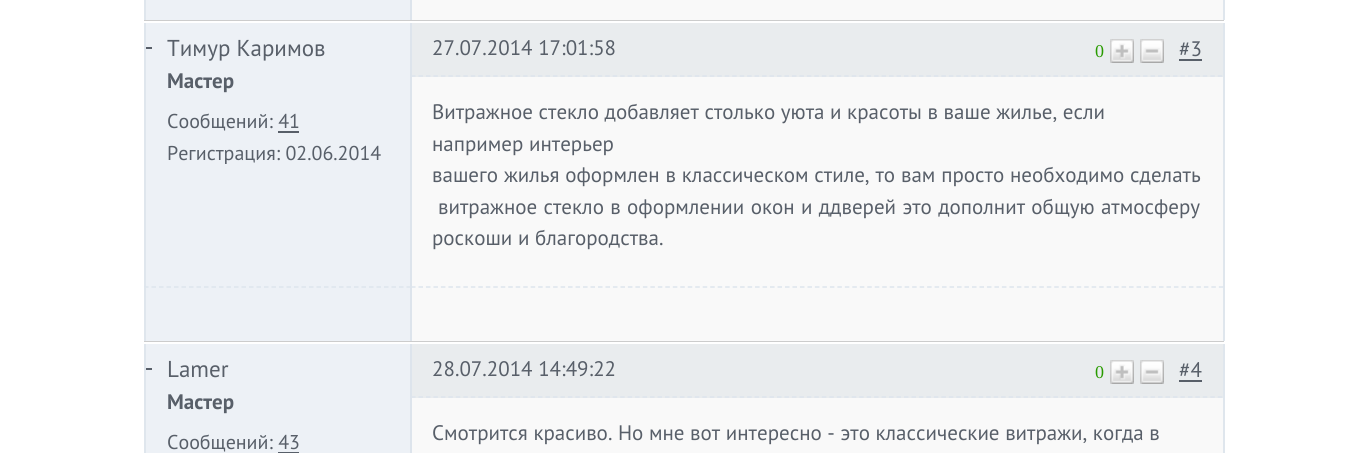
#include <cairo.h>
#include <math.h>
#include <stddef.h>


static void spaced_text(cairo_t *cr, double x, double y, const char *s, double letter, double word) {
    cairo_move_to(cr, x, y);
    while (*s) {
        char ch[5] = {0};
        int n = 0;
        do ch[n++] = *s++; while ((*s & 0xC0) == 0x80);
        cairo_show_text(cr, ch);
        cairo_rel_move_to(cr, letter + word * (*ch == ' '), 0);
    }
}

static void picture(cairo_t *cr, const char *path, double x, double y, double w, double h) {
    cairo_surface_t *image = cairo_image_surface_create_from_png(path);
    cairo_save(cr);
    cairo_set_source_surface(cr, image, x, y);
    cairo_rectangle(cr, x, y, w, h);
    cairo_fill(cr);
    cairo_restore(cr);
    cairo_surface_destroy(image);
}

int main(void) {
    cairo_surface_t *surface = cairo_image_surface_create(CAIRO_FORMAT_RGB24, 1367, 453);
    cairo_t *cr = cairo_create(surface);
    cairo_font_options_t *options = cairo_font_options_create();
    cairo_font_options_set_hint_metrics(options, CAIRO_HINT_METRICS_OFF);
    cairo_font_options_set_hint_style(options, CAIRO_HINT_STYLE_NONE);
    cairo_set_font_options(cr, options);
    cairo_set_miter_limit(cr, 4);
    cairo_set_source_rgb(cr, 1, 1, 1);
    cairo_paint(cr);
    cairo_set_source_rgb(cr, 0.8, 0.8, 0.8);
    cairo_rectangle(cr, 144, 20, 1080, 1);
    cairo_fill(cr);
    cairo_set_source_rgb(cr, 0.929, 0.945, 0.961);
    cairo_rectangle(cr, 146, 0, 264, 20);
    cairo_fill(cr);
    cairo_set_source_rgb(cr, 0.867, 0.894, 0.922);
    cairo_rectangle(cr, 410, 0, 2, 20);
    cairo_fill(cr);
    cairo_set_source_rgb(cr, 0.875, 0.902, 0.929);
    cairo_rectangle(cr, 144, 0, 2, 20);
    cairo_fill(cr);
    cairo_set_source_rgb(cr, 0.976, 0.976, 0.976);
    cairo_rectangle(cr, 412, 0, 811, 20);
    cairo_fill(cr);
    cairo_set_source_rgb(cr, 0.875, 0.902, 0.929);
    cairo_rectangle(cr, 1223, 0, 2, 20);
    cairo_fill(cr);
    cairo_set_source_rgb(cr, 0.8, 0.8, 0.8);
    cairo_rectangle(cr, 144, 341, 1080, 1);
    cairo_fill(cr);
    cairo_set_source_rgb(cr, 0.929, 0.945, 0.961);
    cairo_rectangle(cr, 146, 23, 264, 318);
    cairo_fill(cr);
    cairo_set_source_rgb(cr, 0.914, 0.922, 0.933);
    cairo_rectangle(cr, 412, 23, 811, 54);
    cairo_fill(cr);
    cairo_new_path(cr);
    cairo_move_to(cr, 411, 76);
    cairo_line_to(cr, 1222.5, 76);
    cairo_set_source_rgb(cr, 0.867, 0.894, 0.922);
    cairo_set_line_width(cr, 1.5);
    cairo_set_dash(cr, (double[]){4.5, 2.97}, 2, 0);
    cairo_stroke(cr);
    cairo_set_source_rgb(cr, 0.976, 0.976, 0.976);
    cairo_rectangle(cr, 412, 77, 811, 264);
    cairo_fill(cr);
    cairo_set_source_rgb(cr, 0.875, 0.902, 0.929);
    cairo_rectangle(cr, 1223, 23, 2, 264);
    cairo_fill(cr);
    cairo_new_path(cr);
    cairo_move_to(cr, 411, 287);
    cairo_line_to(cr, 1224, 287);
    cairo_set_source_rgb(cr, 0.867, 0.894, 0.922);
    cairo_set_dash(cr, (double[]){4.5, 2.98}, 2, 0);
    cairo_stroke(cr);
    cairo_rectangle(cr, 410, 23, 2, 264);
    cairo_fill(cr);
    cairo_set_source_rgb(cr, 0.875, 0.902, 0.929);
    cairo_rectangle(cr, 144, 23, 2, 264);
    cairo_fill(cr);
    cairo_set_source_rgb(cr, 0.345, 0.373, 0.412);
    cairo_rectangle(cr, 146, 47, 6, 2);
    cairo_fill(cr);
    cairo_select_font_face(cr, "PT Sans", CAIRO_FONT_SLANT_NORMAL, CAIRO_FONT_WEIGHT_NORMAL);
    cairo_set_font_size(cr, 23);
    cairo_move_to(cr, 167, 56);
    cairo_show_text(cr, "Тимур Каримов");
    cairo_select_font_face(cr, "PT Sans", CAIRO_FONT_SLANT_NORMAL, CAIRO_FONT_WEIGHT_BOLD);
    cairo_set_font_size(cr, 21);
    cairo_move_to(cr, 167, 88);
    cairo_show_text(cr, "Мастер");
    cairo_select_font_face(cr, "PT Sans", CAIRO_FONT_SLANT_NORMAL, CAIRO_FONT_WEIGHT_NORMAL);
    cairo_set_font_size(cr, 20);
    cairo_move_to(cr, 167, 128);
    cairo_show_text(cr, "Сообщений: 41");
    cairo_rectangle(cr, 278, 131, 21, 2);
    cairo_fill(cr);
    cairo_move_to(cr, 167, 160);
    cairo_show_text(cr, "Регистрация: 02.06.2014");
    cairo_set_font_size(cr, 21);
    cairo_move_to(cr, 432, 55);
    cairo_show_text(cr, "27.07.2014 17:01:58");
    cairo_select_font_face(cr, "Liberation Serif", CAIRO_FONT_SLANT_NORMAL, CAIRO_FONT_WEIGHT_NORMAL);
    cairo_set_font_size(cr, 18);
    cairo_set_source_rgb(cr, 0.157, 0.608, 0);
    cairo_move_to(cr, 1095, 57);
    cairo_show_text(cr, "0");
    picture(cr, "img1.png", 1110, 39, 24, 24);
    picture(cr, "img2.png", 1140, 39, 24, 24);
    cairo_select_font_face(cr, "PT Sans", CAIRO_FONT_SLANT_NORMAL, CAIRO_FONT_WEIGHT_NORMAL);
    cairo_set_font_size(cr, 21);
    cairo_set_source_rgb(cr, 0.345, 0.373, 0.412);
    cairo_move_to(cr, 1179, 56);
    cairo_show_text(cr, "#3");
    cairo_rectangle(cr, 1179, 59, 23, 2);
    cairo_fill(cr);
    cairo_move_to(cr, 432, 119);
    cairo_show_text(cr, "Витражное стекло добавляет столько уюта и красоты в ваше жилье, если");
    cairo_move_to(cr, 432, 151);
    cairo_show_text(cr, "например интерьер");
    spaced_text(cr, 432, 182, "вашего жилья оформлен в классическом стиле, то вам просто необходимо сделать", 0, 0.25);
    spaced_text(cr, 438, 214, "витражное стекло в оформлении окон и ддверей это дополнит общую атмосферу", 0, 0.75);
    cairo_move_to(cr, 432, 245);
    cairo_show_text(cr, "роскоши и благородства.");
    cairo_new_path(cr);
    cairo_move_to(cr, 144, 287);
    cairo_line_to(cr, 411, 287);
    cairo_set_source_rgb(cr, 0.867, 0.894, 0.922);
    cairo_set_dash(cr, (double[]){4.5, 3}, 2, 0);
    cairo_stroke(cr);
    cairo_rectangle(cr, 410, 287, 2, 54);
    cairo_fill(cr);
    cairo_set_source_rgb(cr, 0.875, 0.902, 0.929);
    cairo_rectangle(cr, 144, 287, 2, 54);
    cairo_fill(cr);
    cairo_rectangle(cr, 1223, 287, 2, 54);
    cairo_fill(cr);
    cairo_set_source_rgb(cr, 0.929, 0.945, 0.961);
    cairo_rectangle(cr, 146, 344, 264, 109);
    cairo_fill(cr);
    cairo_set_source_rgb(cr, 0.914, 0.922, 0.933);
    cairo_rectangle(cr, 412, 344, 811, 54);
    cairo_fill(cr);
    cairo_new_path(cr);
    cairo_move_to(cr, 411, 397);
    cairo_line_to(cr, 1222.5, 397);
    cairo_set_source_rgb(cr, 0.867, 0.894, 0.922);
    cairo_set_dash(cr, (double[]){4.5, 2.97}, 2, 0);
    cairo_stroke(cr);
    cairo_rectangle(cr, 410, 344, 2, 109);
    cairo_fill(cr);
    cairo_set_source_rgb(cr, 0.875, 0.902, 0.929);
    cairo_rectangle(cr, 144, 344, 2, 109);
    cairo_fill(cr);
    cairo_set_source_rgb(cr, 0.345, 0.373, 0.412);
    cairo_rectangle(cr, 146, 368, 6, 2);
    cairo_fill(cr);
    cairo_set_font_size(cr, 23);
    cairo_move_to(cr, 167, 377);
    cairo_show_text(cr, "Lamer");
    cairo_select_font_face(cr, "PT Sans", CAIRO_FONT_SLANT_NORMAL, CAIRO_FONT_WEIGHT_BOLD);
    cairo_set_font_size(cr, 21);
    cairo_move_to(cr, 167, 409);
    cairo_show_text(cr, "Мастер");
    cairo_select_font_face(cr, "PT Sans", CAIRO_FONT_SLANT_NORMAL, CAIRO_FONT_WEIGHT_NORMAL);
    cairo_set_font_size(cr, 20);
    cairo_move_to(cr, 167, 449);
    cairo_show_text(cr, "Сообщений: 43");
    cairo_rectangle(cr, 278, 452, 21, 1);
    cairo_fill(cr);
    cairo_set_source_rgb(cr, 0.976, 0.976, 0.976);
    cairo_rectangle(cr, 412, 398, 811, 55);
    cairo_fill(cr);
    cairo_set_source_rgb(cr, 0.875, 0.902, 0.929);
    cairo_rectangle(cr, 1223, 344, 2, 109);
    cairo_fill(cr);
    cairo_set_font_size(cr, 21);
    cairo_set_source_rgb(cr, 0.345, 0.373, 0.412);
    cairo_move_to(cr, 432, 376);
    cairo_show_text(cr, "28.07.2014 14:49:22");
    cairo_select_font_face(cr, "Liberation Serif", CAIRO_FONT_SLANT_NORMAL, CAIRO_FONT_WEIGHT_NORMAL);
    cairo_set_font_size(cr, 18);
    cairo_set_source_rgb(cr, 0.157, 0.608, 0);
    cairo_move_to(cr, 1095, 378);
    cairo_show_text(cr, "0");
    picture(cr, "img1.png", 1110, 360, 24, 24);
    picture(cr, "img2.png", 1140, 360, 24, 24);
    cairo_select_font_face(cr, "PT Sans", CAIRO_FONT_SLANT_NORMAL, CAIRO_FONT_WEIGHT_NORMAL);
    cairo_set_font_size(cr, 21);
    cairo_set_source_rgb(cr, 0.345, 0.373, 0.412);
    cairo_move_to(cr, 1179, 377);
    cairo_show_text(cr, "#4");
    cairo_rectangle(cr, 1179, 380, 23, 2);
    cairo_fill(cr);
    cairo_move_to(cr, 432, 440);
    cairo_show_text(cr, "Смотрится красиво. Но мне вот интересно - это классические витражи, когда в");
    cairo_surface_write_to_png(surface, "page.png");
    cairo_font_options_destroy(options);
    cairo_destroy(cr);
    cairo_surface_destroy(surface);
    return 0;
}
